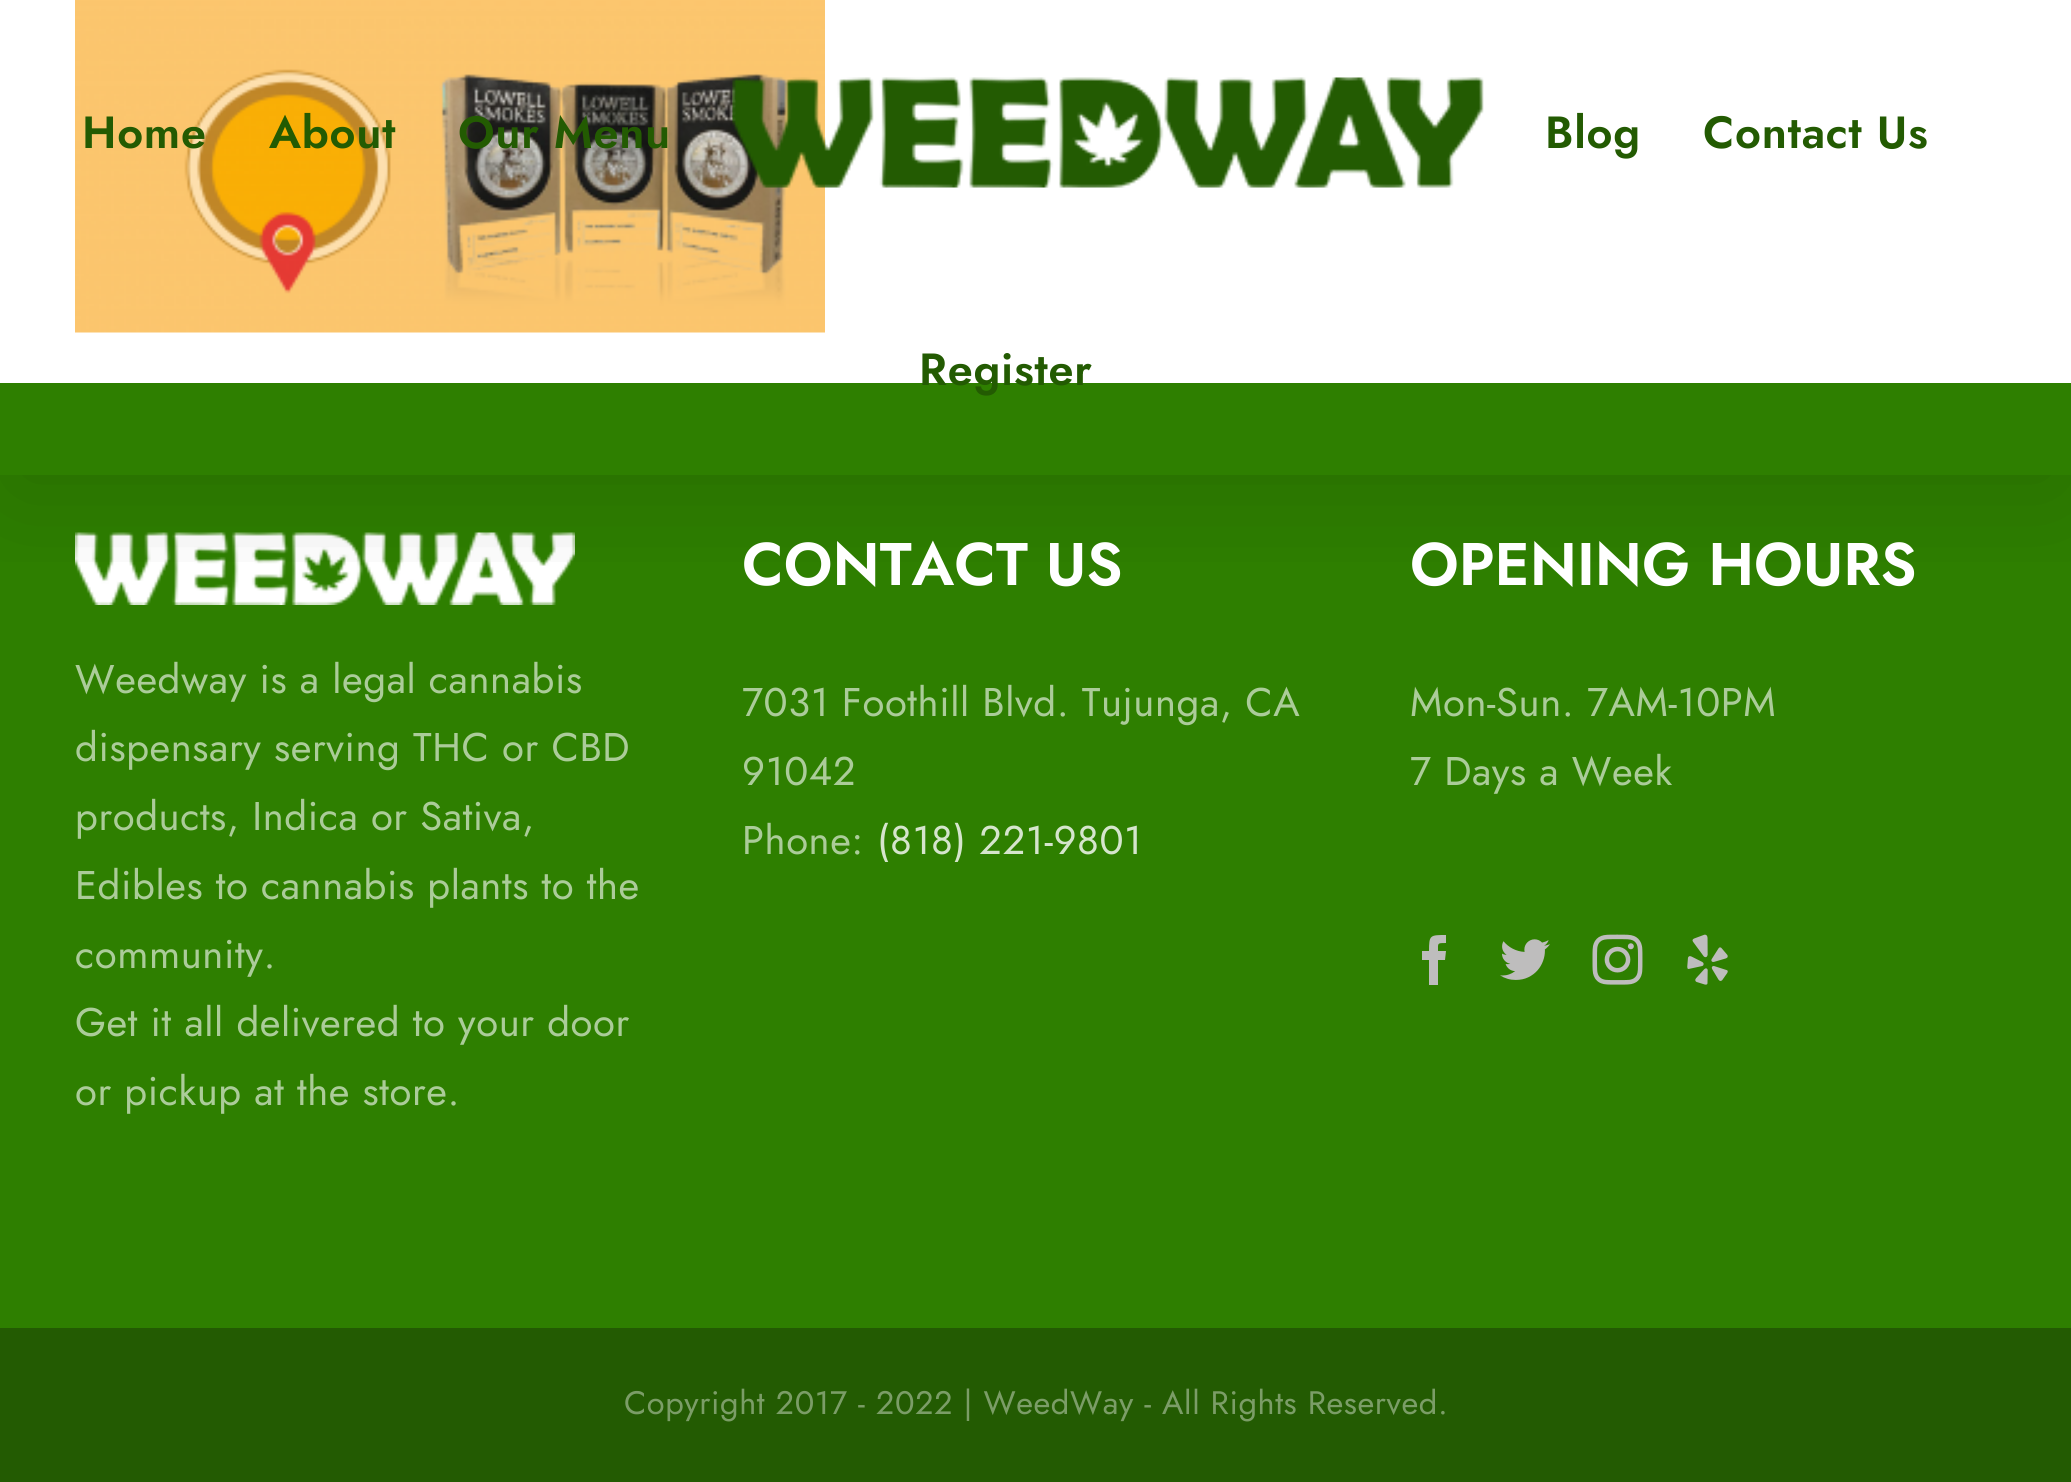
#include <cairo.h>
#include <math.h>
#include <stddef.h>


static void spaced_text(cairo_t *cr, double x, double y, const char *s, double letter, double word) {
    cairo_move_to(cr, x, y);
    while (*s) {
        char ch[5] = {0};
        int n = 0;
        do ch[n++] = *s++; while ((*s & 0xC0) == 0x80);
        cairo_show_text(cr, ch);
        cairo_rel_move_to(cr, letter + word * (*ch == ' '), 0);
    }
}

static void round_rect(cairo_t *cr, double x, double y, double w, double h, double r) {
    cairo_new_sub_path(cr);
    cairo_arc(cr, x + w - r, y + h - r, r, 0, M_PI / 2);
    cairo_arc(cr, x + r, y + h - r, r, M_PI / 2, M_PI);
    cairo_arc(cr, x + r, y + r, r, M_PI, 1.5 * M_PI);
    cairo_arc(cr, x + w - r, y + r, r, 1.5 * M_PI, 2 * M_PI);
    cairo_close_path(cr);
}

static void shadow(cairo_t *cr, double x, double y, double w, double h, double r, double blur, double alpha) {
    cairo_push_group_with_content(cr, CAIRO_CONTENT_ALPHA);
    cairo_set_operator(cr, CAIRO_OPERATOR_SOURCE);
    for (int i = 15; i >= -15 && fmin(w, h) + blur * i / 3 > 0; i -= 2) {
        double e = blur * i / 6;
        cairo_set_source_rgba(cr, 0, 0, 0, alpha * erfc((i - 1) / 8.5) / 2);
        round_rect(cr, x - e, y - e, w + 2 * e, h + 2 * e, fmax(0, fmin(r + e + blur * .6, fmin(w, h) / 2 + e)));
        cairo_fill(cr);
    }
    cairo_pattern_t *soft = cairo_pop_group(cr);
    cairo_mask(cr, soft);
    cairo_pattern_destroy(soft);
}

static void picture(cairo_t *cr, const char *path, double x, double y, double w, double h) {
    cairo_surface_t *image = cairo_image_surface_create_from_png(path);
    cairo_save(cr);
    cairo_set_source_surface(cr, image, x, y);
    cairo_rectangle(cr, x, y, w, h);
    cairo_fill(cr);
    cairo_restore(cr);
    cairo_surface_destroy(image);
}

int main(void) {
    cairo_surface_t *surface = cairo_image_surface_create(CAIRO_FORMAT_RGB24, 2071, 1482);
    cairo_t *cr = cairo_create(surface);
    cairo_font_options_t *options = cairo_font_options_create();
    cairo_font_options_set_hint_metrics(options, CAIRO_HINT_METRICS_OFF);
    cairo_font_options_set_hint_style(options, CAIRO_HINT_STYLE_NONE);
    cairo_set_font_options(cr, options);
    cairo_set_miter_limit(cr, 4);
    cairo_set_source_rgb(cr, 1, 1, 1);
    cairo_paint(cr);
    picture(cr, "img1.png", 75, 0, 750, 333);
    cairo_set_source_rgb(cr, 0.18, 0.498, 0);
    cairo_rectangle(cr, 0, 383, 2071, 945);
    cairo_fill(cr);
    picture(cr, "img3.png", 75, 532, 500, 73);
    cairo_save(cr);
    cairo_rectangle(cr, 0, 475, 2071, 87);
    cairo_clip(cr);
    cairo_set_source_rgb(cr, 0, 0, 0);
    shadow(cr, 5, 30, 2063, 465, 0, 62.5, 0.14);
    cairo_restore(cr);
    cairo_select_font_face(cr, "Jost SemiBold", CAIRO_FONT_SLANT_NORMAL, CAIRO_FONT_WEIGHT_NORMAL);
    cairo_set_font_size(cr, 45);
    cairo_set_source_rgb(cr, 0.137, 0.357, 0.008);
    spaced_text(cr, 82, 148, "Home", 0.75, 0);
    spaced_text(cr, 269, 148, "About", 0.75, 0);
    spaced_text(cr, 458, 148, "Our Menu", 0.75, 0);
    picture(cr, "img2.png", 732, 77, 752, 111);
    spaced_text(cr, 1545, 148, "Blog", 0.75, 0);
    spaced_text(cr, 1703, 148, "Contact Us", 0.75, 0);
    spaced_text(cr, 919, 385, "Register", 0.75, 0);
    cairo_select_font_face(cr, "Jost", CAIRO_FONT_SLANT_NORMAL, CAIRO_FONT_WEIGHT_NORMAL);
    cairo_set_font_size(cr, 40);
    cairo_set_source_rgb(cr, 0.671, 0.8, 0.6);
    spaced_text(cr, 75, 693, "Weedway is a legal cannabis", 0.6, 0);
    spaced_text(cr, 75, 761, "dispensary serving THC or CBD", 0.6, 0);
    spaced_text(cr, 75, 830, "products, Indica or Sativa,", 0.6, 0);
    spaced_text(cr, 75, 899, "Edibles to cannabis plants to the", 0.6, 0);
    spaced_text(cr, 75, 968, "community.", 0.6, 0);
    spaced_text(cr, 75, 1036, "Get it all delivered to your door", 0.6, 0);
    spaced_text(cr, 75, 1105, "or pickup at the store.", 0.6, 0);
    cairo_select_font_face(cr, "Jost SemiBold", CAIRO_FONT_SLANT_NORMAL, CAIRO_FONT_WEIGHT_NORMAL);
    cairo_set_font_size(cr, 60);
    cairo_set_source_rgb(cr, 1, 1, 1);
    cairo_move_to(cr, 742, 585);
    cairo_show_text(cr, "CONTACT US");
    cairo_select_font_face(cr, "Jost", CAIRO_FONT_SLANT_NORMAL, CAIRO_FONT_WEIGHT_NORMAL);
    cairo_set_font_size(cr, 40);
    cairo_set_source_rgb(cr, 0.671, 0.8, 0.6);
    spaced_text(cr, 742, 716, "7031 Foothill Blvd. Tujunga, CA", 0.6, 0);
    spaced_text(cr, 742, 785, "91042", 0.6, 0);
    spaced_text(cr, 742, 854, "Phone:", 0.6, 0);
    cairo_set_source_rgb(cr, 0.835, 0.898, 0.8);
    spaced_text(cr, 877, 854, "(818) 221-9801", 0.6, 0);
    cairo_select_font_face(cr, "Jost SemiBold", CAIRO_FONT_SLANT_NORMAL, CAIRO_FONT_WEIGHT_NORMAL);
    cairo_set_font_size(cr, 60);
    cairo_set_source_rgb(cr, 1, 1, 1);
    cairo_move_to(cr, 1410, 585);
    cairo_show_text(cr, "OPENING HOURS");
    cairo_select_font_face(cr, "Jost", CAIRO_FONT_SLANT_NORMAL, CAIRO_FONT_WEIGHT_NORMAL);
    cairo_set_font_size(cr, 40);
    cairo_set_source_rgb(cr, 0.671, 0.8, 0.6);
    spaced_text(cr, 1410, 716, "Mon-Sun. 7AM-10PM", 0.6, 0);
    spaced_text(cr, 1410, 785, "7 Days a Week", 0.6, 0);
    cairo_set_source_rgb(cr, 0.745, 0.741, 0.741);
    cairo_new_path(cr);
    cairo_move_to(cr, 1438, 985);
    cairo_line_to(cr, 1429, 985);
    cairo_line_to(cr, 1429, 960);
    cairo_line_to(cr, 1422, 960);
    cairo_line_to(cr, 1422, 951);
    cairo_line_to(cr, 1429, 951);
    cairo_curve_to(cr, 1429, 935, 1430, 935, 1446, 935);
    cairo_line_to(cr, 1446, 943);
    cairo_curve_to(cr, 1437, 943, 1438, 943, 1438, 951);
    cairo_line_to(cr, 1446, 951);
    cairo_line_to(cr, 1445, 960);
    cairo_line_to(cr, 1438, 960);
    cairo_close_path(cr);
    cairo_fill(cr);
    picture(cr, "img4.png", 1500, 939, 50, 41);
    picture(cr, "img5.png", 1592, 934, 51, 51);
    picture(cr, "img6.png", 1687, 934, 41, 51);
    cairo_set_source_rgb(cr, 0.137, 0.357, 0.008);
    cairo_rectangle(cr, 0, 1328, 2071, 154);
    cairo_fill(cr);
    cairo_set_font_size(cr, 32.5);
    cairo_set_source_rgb(cr, 0.482, 0.616, 0.404);
    spaced_text(cr, 624, 1414, "Copyright 2017 - 2022 | WeedWay - All Rights Reserved.", 0.6, 0);
    cairo_surface_write_to_png(surface, "page.png");
    cairo_font_options_destroy(options);
    cairo_destroy(cr);
    cairo_surface_destroy(surface);
    return 0;
}
